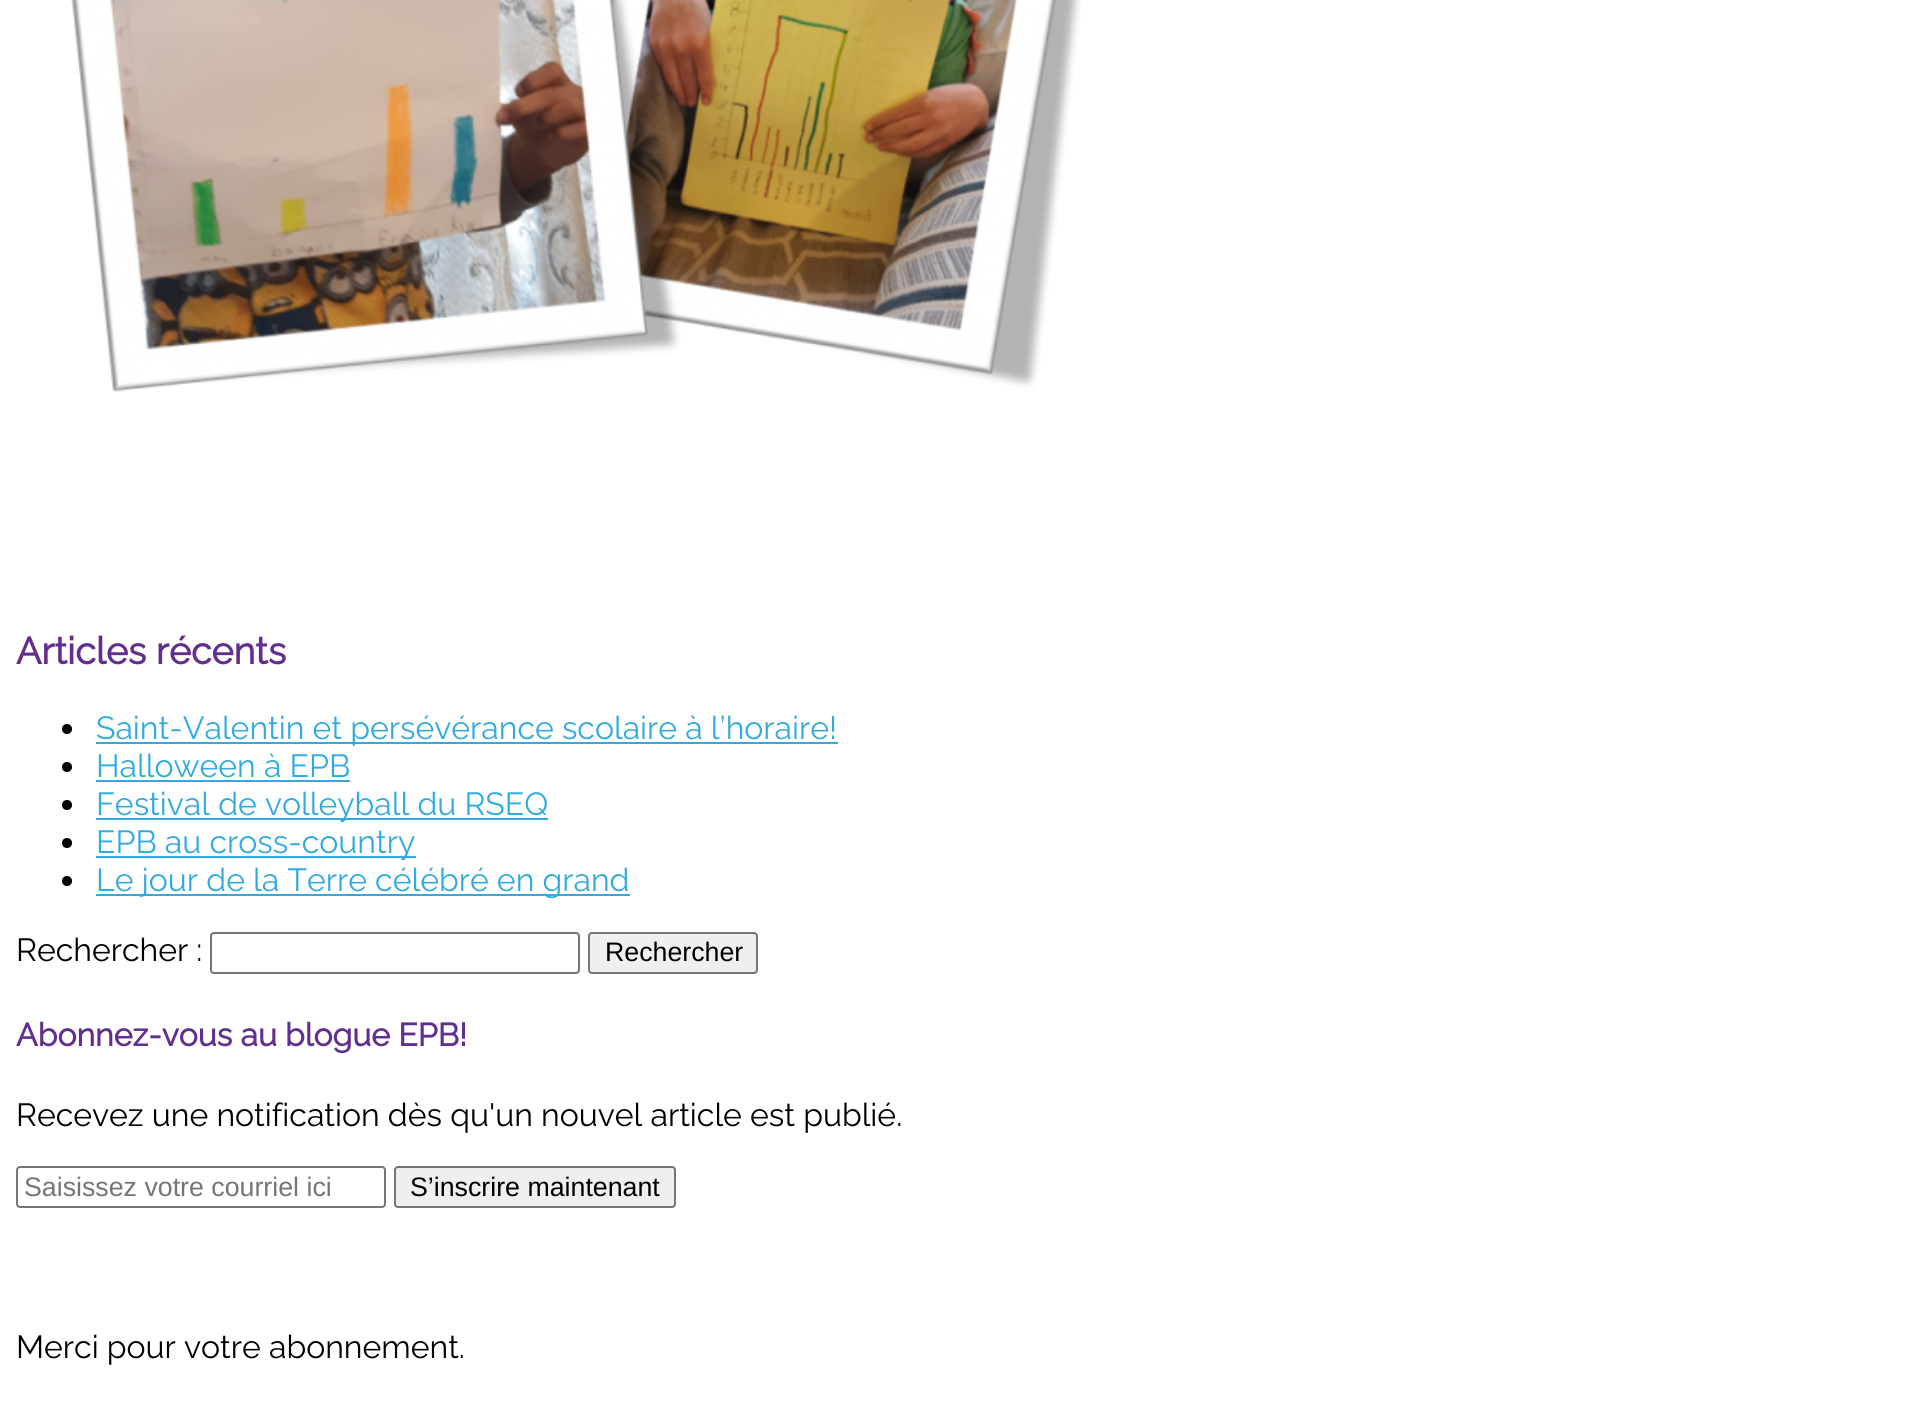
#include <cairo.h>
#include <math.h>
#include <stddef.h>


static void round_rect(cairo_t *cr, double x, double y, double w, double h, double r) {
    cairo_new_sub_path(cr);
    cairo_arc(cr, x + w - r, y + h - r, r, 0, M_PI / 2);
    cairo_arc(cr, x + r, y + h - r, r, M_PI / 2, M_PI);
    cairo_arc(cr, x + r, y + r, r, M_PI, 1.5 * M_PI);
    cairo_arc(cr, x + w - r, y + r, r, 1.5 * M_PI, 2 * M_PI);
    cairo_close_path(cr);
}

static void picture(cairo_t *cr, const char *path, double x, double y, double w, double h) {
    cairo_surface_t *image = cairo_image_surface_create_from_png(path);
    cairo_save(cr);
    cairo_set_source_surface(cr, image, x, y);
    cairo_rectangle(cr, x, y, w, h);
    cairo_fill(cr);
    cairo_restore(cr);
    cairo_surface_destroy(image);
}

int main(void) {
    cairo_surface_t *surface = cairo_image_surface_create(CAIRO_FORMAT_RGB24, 1921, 1404);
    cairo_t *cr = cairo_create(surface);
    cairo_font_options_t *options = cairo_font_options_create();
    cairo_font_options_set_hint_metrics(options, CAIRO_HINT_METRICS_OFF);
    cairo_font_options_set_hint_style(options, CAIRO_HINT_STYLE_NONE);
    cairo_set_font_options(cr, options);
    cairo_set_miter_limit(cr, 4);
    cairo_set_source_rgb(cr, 1, 1, 1);
    cairo_paint(cr);
    picture(cr, "img1.png", 71, 0, 1010, 392);
    cairo_select_font_face(cr, "Raleway", CAIRO_FONT_SLANT_NORMAL, CAIRO_FONT_WEIGHT_BOLD);
    cairo_set_font_size(cr, 37.5);
    cairo_set_source_rgb(cr, 0.384, 0.184, 0.565);
    cairo_move_to(cr, 16, 664);
    cairo_show_text(cr, "Articles récents");
    cairo_set_source_rgb(cr, 0, 0, 0);
    cairo_new_path(cr);
    cairo_arc(cr, 67, 729, 5, 0, 2 * M_PI);
    cairo_fill(cr);
    cairo_set_source_rgb(cr, 0.188, 0.667, 0.882);
    cairo_rectangle(cr, 96, 742, 742, 2);
    cairo_fill(cr);
    cairo_select_font_face(cr, "Raleway Thin", CAIRO_FONT_SLANT_NORMAL, CAIRO_FONT_WEIGHT_NORMAL);
    cairo_set_font_size(cr, 32);
    cairo_move_to(cr, 96, 739);
    cairo_show_text(cr, "Saint-Valentin et persévérance scolaire à l’horaire!");
    cairo_set_source_rgb(cr, 0, 0, 0);
    cairo_new_path(cr);
    cairo_arc(cr, 67, 767, 5, 0, 2 * M_PI);
    cairo_fill(cr);
    cairo_set_source_rgb(cr, 0.188, 0.667, 0.882);
    cairo_move_to(cr, 96, 777);
    cairo_show_text(cr, "Halloween à EPB");
    cairo_rectangle(cr, 96, 780, 254, 2);
    cairo_fill(cr);
    cairo_set_source_rgb(cr, 0, 0, 0);
    cairo_arc(cr, 67, 805, 5, 0, 2 * M_PI);
    cairo_fill(cr);
    cairo_set_source_rgb(cr, 0.188, 0.667, 0.882);
    cairo_rectangle(cr, 96, 818, 452, 2);
    cairo_fill(cr);
    cairo_move_to(cr, 96, 815);
    cairo_show_text(cr, "Festival de volleyball du RSEQ");
    cairo_set_source_rgb(cr, 0, 0, 0);
    cairo_new_path(cr);
    cairo_arc(cr, 67, 843, 5, 0, 2 * M_PI);
    cairo_fill(cr);
    cairo_set_source_rgb(cr, 0.188, 0.667, 0.882);
    cairo_rectangle(cr, 96, 856, 320, 2);
    cairo_fill(cr);
    cairo_move_to(cr, 96, 853);
    cairo_show_text(cr, "EPB au cross-country");
    cairo_set_source_rgb(cr, 0, 0, 0);
    cairo_new_path(cr);
    cairo_arc(cr, 67, 881, 5, 0, 2 * M_PI);
    cairo_fill(cr);
    cairo_set_source_rgb(cr, 0.188, 0.667, 0.882);
    cairo_rectangle(cr, 96, 894, 534, 2);
    cairo_fill(cr);
    cairo_move_to(cr, 96, 891);
    cairo_show_text(cr, "Le jour de la Terre célébré en grand");
    cairo_set_source_rgb(cr, 0, 0, 0);
    cairo_move_to(cr, 16, 961);
    cairo_show_text(cr, "Rechercher :");
    round_rect(cr, 211, 933, 368, 40, 3);
    cairo_set_source_rgb(cr, 0.463, 0.463, 0.463);
    cairo_stroke(cr);
    cairo_set_source_rgb(cr, 0.937, 0.937, 0.937);
    round_rect(cr, 589, 933, 168, 40, 3);
    cairo_fill_preserve(cr);
    cairo_set_source_rgb(cr, 0.463, 0.463, 0.463);
    cairo_stroke(cr);
    cairo_select_font_face(cr, "Liberation Sans", CAIRO_FONT_SLANT_NORMAL, CAIRO_FONT_WEIGHT_NORMAL);
    cairo_set_font_size(cr, 26.75);
    cairo_set_source_rgb(cr, 0, 0, 0);
    cairo_move_to(cr, 605, 961);
    cairo_show_text(cr, "Rechercher");
    cairo_select_font_face(cr, "Raleway", CAIRO_FONT_SLANT_NORMAL, CAIRO_FONT_WEIGHT_BOLD);
    cairo_set_font_size(cr, 32);
    cairo_set_source_rgb(cr, 0.384, 0.184, 0.565);
    cairo_move_to(cr, 16, 1046);
    cairo_show_text(cr, "Abonnez-vous au blogue EPB!");
    cairo_select_font_face(cr, "Raleway Thin", CAIRO_FONT_SLANT_NORMAL, CAIRO_FONT_WEIGHT_NORMAL);
    cairo_set_source_rgb(cr, 0, 0, 0);
    cairo_move_to(cr, 16, 1126);
    cairo_show_text(cr, "Recevez une notification dès qu'un nouvel article est publié.");
    round_rect(cr, 17, 1167, 368, 40, 3);
    cairo_set_source_rgb(cr, 0.463, 0.463, 0.463);
    cairo_stroke(cr);
    cairo_select_font_face(cr, "Liberation Sans", CAIRO_FONT_SLANT_NORMAL, CAIRO_FONT_WEIGHT_NORMAL);
    cairo_set_font_size(cr, 26.75);
    cairo_set_source_rgb(cr, 0.459, 0.459, 0.459);
    cairo_move_to(cr, 24, 1196);
    cairo_show_text(cr, "Saisissez votre courriel ici");
    cairo_set_source_rgb(cr, 0.937, 0.937, 0.937);
    round_rect(cr, 395, 1167, 280, 40, 3);
    cairo_fill_preserve(cr);
    cairo_set_source_rgb(cr, 0.463, 0.463, 0.463);
    cairo_stroke(cr);
    cairo_set_source_rgb(cr, 0, 0, 0);
    cairo_move_to(cr, 410, 1196);
    cairo_show_text(cr, "S’inscrire maintenant");
    cairo_select_font_face(cr, "Raleway Thin", CAIRO_FONT_SLANT_NORMAL, CAIRO_FONT_WEIGHT_NORMAL);
    cairo_set_font_size(cr, 32);
    cairo_move_to(cr, 16, 1358);
    cairo_show_text(cr, "Merci pour votre abonnement.");
    cairo_surface_write_to_png(surface, "page.png");
    cairo_font_options_destroy(options);
    cairo_destroy(cr);
    cairo_surface_destroy(surface);
    return 0;
}
